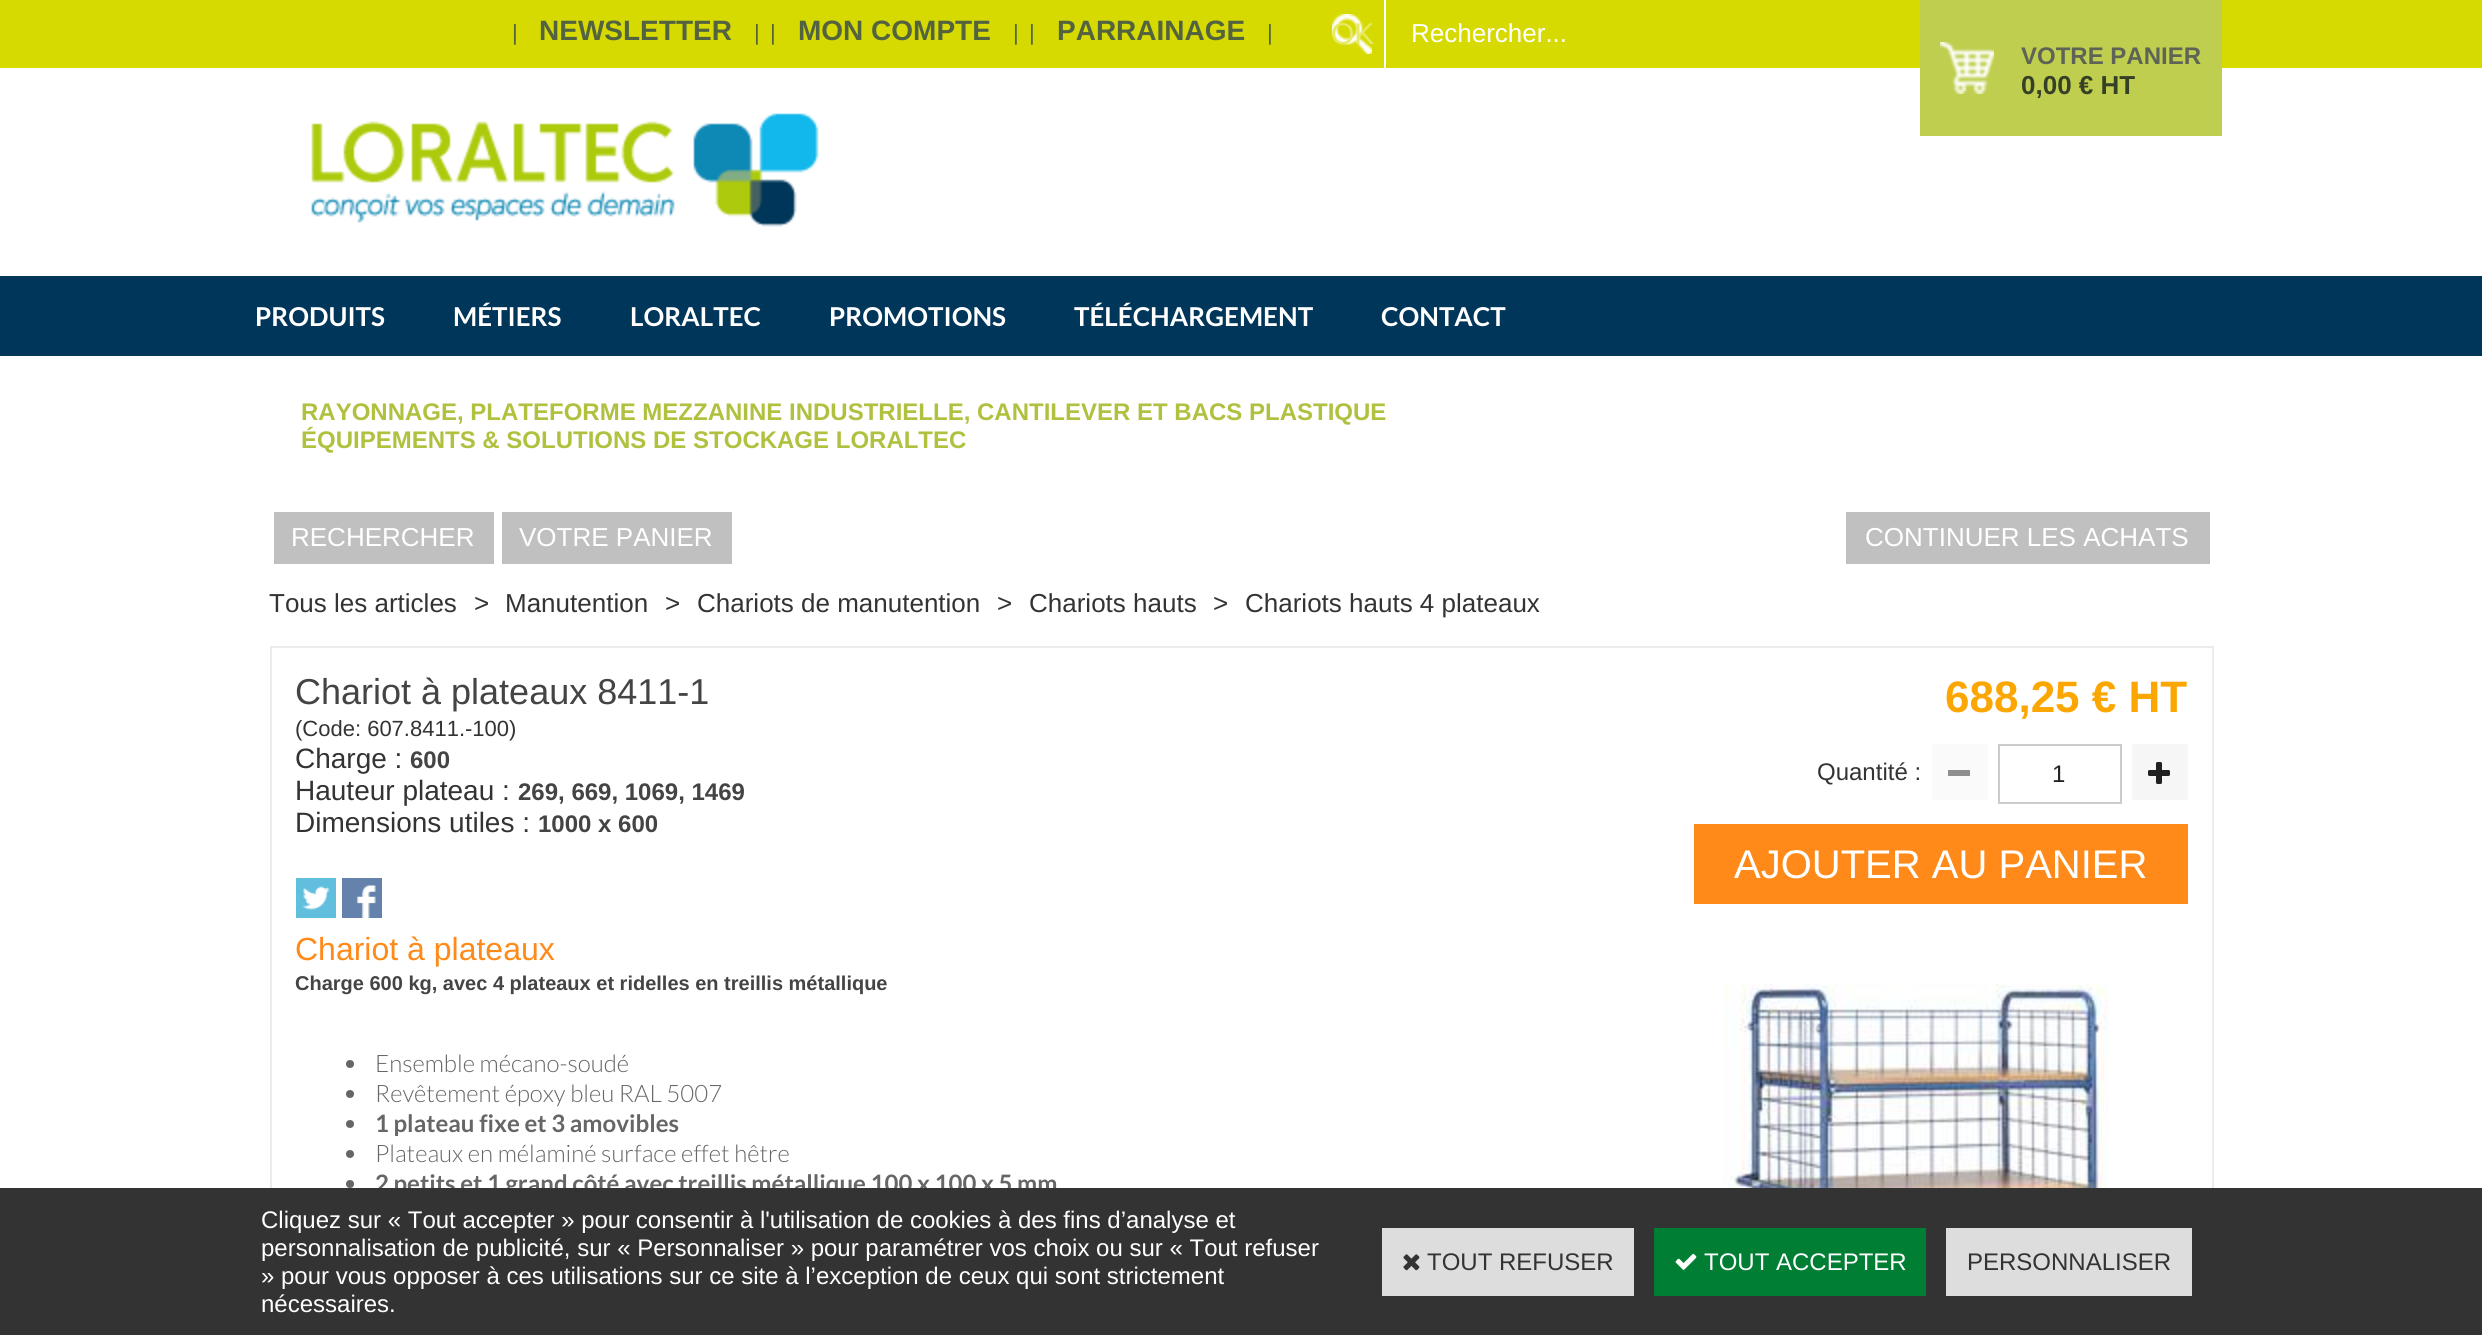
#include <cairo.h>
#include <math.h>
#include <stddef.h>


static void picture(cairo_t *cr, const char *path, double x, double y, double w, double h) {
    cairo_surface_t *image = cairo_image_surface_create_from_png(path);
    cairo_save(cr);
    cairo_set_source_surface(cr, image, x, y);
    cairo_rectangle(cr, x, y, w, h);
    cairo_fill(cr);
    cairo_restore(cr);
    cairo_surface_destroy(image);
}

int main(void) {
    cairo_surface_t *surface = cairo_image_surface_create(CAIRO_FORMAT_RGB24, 2482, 1335);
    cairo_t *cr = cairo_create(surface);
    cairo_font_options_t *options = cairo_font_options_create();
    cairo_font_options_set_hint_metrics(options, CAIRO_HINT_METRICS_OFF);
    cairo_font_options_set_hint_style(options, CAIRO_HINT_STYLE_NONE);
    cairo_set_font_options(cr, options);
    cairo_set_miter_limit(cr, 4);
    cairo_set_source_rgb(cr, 1, 1, 1);
    cairo_paint(cr);
    cairo_set_source_rgb(cr, 0.843, 0.855, 0);
    cairo_rectangle(cr, 0, 0, 2482, 68);
    cairo_fill(cr);
    cairo_select_font_face(cr, "Liberation Sans", CAIRO_FONT_SLANT_NORMAL, CAIRO_FONT_WEIGHT_NORMAL);
    cairo_set_font_size(cr, 22);
    cairo_set_source_rgb(cr, 0.325, 0.388, 0.247);
    cairo_move_to(cr, 512, 40);
    cairo_show_text(cr, "|");
    cairo_select_font_face(cr, "Liberation Sans", CAIRO_FONT_SLANT_NORMAL, CAIRO_FONT_WEIGHT_BOLD);
    cairo_set_font_size(cr, 28);
    cairo_move_to(cr, 539, 40);
    cairo_show_text(cr, "NEWSLETTER");
    cairo_select_font_face(cr, "Liberation Sans", CAIRO_FONT_SLANT_NORMAL, CAIRO_FONT_WEIGHT_NORMAL);
    cairo_set_font_size(cr, 22);
    cairo_move_to(cr, 754, 40);
    cairo_show_text(cr, "|");
    cairo_move_to(cr, 770, 40);
    cairo_show_text(cr, "|");
    cairo_select_font_face(cr, "Liberation Sans", CAIRO_FONT_SLANT_NORMAL, CAIRO_FONT_WEIGHT_BOLD);
    cairo_set_font_size(cr, 28);
    cairo_move_to(cr, 798, 40);
    cairo_show_text(cr, "MON COMPTE");
    cairo_select_font_face(cr, "Liberation Sans", CAIRO_FONT_SLANT_NORMAL, CAIRO_FONT_WEIGHT_NORMAL);
    cairo_set_font_size(cr, 22);
    cairo_move_to(cr, 1013, 40);
    cairo_show_text(cr, "|");
    cairo_move_to(cr, 1029, 40);
    cairo_show_text(cr, "|");
    cairo_select_font_face(cr, "Liberation Sans", CAIRO_FONT_SLANT_NORMAL, CAIRO_FONT_WEIGHT_BOLD);
    cairo_set_font_size(cr, 28);
    cairo_move_to(cr, 1057, 40);
    cairo_show_text(cr, "PARRAINAGE");
    cairo_select_font_face(cr, "Liberation Sans", CAIRO_FONT_SLANT_NORMAL, CAIRO_FONT_WEIGHT_NORMAL);
    cairo_set_font_size(cr, 22);
    cairo_move_to(cr, 1267, 40);
    cairo_show_text(cr, "|");
    picture(cr, "img1.png", 1332, 14, 40, 40);
    cairo_set_source_rgb(cr, 1, 1, 1);
    cairo_rectangle(cr, 1384, 0, 2, 68);
    cairo_fill(cr);
    cairo_set_font_size(cr, 30);
    cairo_set_source_rgb(cr, 0.906, 0.914, 0.392);
    cairo_move_to(cr, 1331, 44);
    cairo_show_text(cr, "OK");
    cairo_set_font_size(cr, 26);
    cairo_set_source_rgb(cr, 1, 1, 1);
    cairo_move_to(cr, 1411, 42);
    cairo_show_text(cr, "Rechercher...");
    cairo_set_source_rgb(cr, 0.749, 0.808, 0.31);
    cairo_rectangle(cr, 1920, 0, 302, 136);
    cairo_fill(cr);
    picture(cr, "img2.png", 1940, 42, 54, 52);
    cairo_select_font_face(cr, "Liberation Sans", CAIRO_FONT_SLANT_NORMAL, CAIRO_FONT_WEIGHT_BOLD);
    cairo_set_font_size(cr, 24);
    cairo_set_source_rgb(cr, 0.365, 0.388, 0.333);
    cairo_move_to(cr, 2021, 64);
    cairo_show_text(cr, "VOTRE PANIER");
    cairo_set_font_size(cr, 26);
    cairo_set_source_rgb(cr, 0.208, 0.251, 0.149);
    cairo_move_to(cr, 2021, 94);
    cairo_show_text(cr, "0,00 € HT");
    picture(cr, "img3.png", 311, 113, 508, 114);
    cairo_set_source_rgb(cr, 0, 0.212, 0.353);
    cairo_rectangle(cr, 0, 276, 2482, 80);
    cairo_fill(cr);
    cairo_select_font_face(cr, "Lato", CAIRO_FONT_SLANT_NORMAL, CAIRO_FONT_WEIGHT_BOLD);
    cairo_set_source_rgb(cr, 1, 1, 1);
    cairo_move_to(cr, 255, 326);
    cairo_show_text(cr, "PRODUITS");
    cairo_move_to(cr, 453, 326);
    cairo_show_text(cr, "MÉTIERS");
    cairo_move_to(cr, 630, 326);
    cairo_show_text(cr, "LORALTEC");
    cairo_move_to(cr, 829, 326);
    cairo_show_text(cr, "PROMOTIONS");
    cairo_move_to(cr, 1074, 326);
    cairo_show_text(cr, "TÉLÉCHARGEMENT");
    cairo_move_to(cr, 1381, 326);
    cairo_show_text(cr, "CONTACT");
    cairo_select_font_face(cr, "Liberation Sans", CAIRO_FONT_SLANT_NORMAL, CAIRO_FONT_WEIGHT_BOLD);
    cairo_set_font_size(cr, 24);
    cairo_set_source_rgb(cr, 0.694, 0.753, 0.247);
    cairo_move_to(cr, 301, 420);
    cairo_show_text(cr, "RAYONNAGE, PLATEFORME MEZZANINE INDUSTRIELLE, CANTILEVER ET BACS PLASTIQUE");
    cairo_move_to(cr, 301, 448);
    cairo_show_text(cr, "ÉQUIPEMENTS & SOLUTIONS DE STOCKAGE LORALTEC");
    cairo_set_source_rgb(cr, 0.753, 0.753, 0.753);
    cairo_rectangle(cr, 274, 512, 220, 52);
    cairo_fill(cr);
    cairo_select_font_face(cr, "Liberation Sans", CAIRO_FONT_SLANT_NORMAL, CAIRO_FONT_WEIGHT_NORMAL);
    cairo_set_font_size(cr, 26);
    cairo_set_source_rgb(cr, 1, 1, 1);
    cairo_move_to(cr, 291, 546);
    cairo_show_text(cr, "RECHERCHER");
    cairo_set_source_rgb(cr, 0.753, 0.753, 0.753);
    cairo_rectangle(cr, 502, 512, 230, 52);
    cairo_fill(cr);
    cairo_set_source_rgb(cr, 1, 1, 1);
    cairo_move_to(cr, 519, 546);
    cairo_show_text(cr, "VOTRE PANIER");
    cairo_set_source_rgb(cr, 0.753, 0.753, 0.753);
    cairo_rectangle(cr, 1846, 512, 364, 52);
    cairo_fill(cr);
    cairo_set_source_rgb(cr, 1, 1, 1);
    cairo_move_to(cr, 1865, 546);
    cairo_show_text(cr, "CONTINUER LES ACHATS");
    cairo_set_source_rgb(cr, 0.2, 0.2, 0.2);
    cairo_move_to(cr, 269, 612);
    cairo_show_text(cr, "Tous les articles");
    cairo_move_to(cr, 474, 612);
    cairo_show_text(cr, ">");
    cairo_move_to(cr, 505, 612);
    cairo_show_text(cr, "Manutention");
    cairo_move_to(cr, 665, 612);
    cairo_show_text(cr, ">");
    cairo_move_to(cr, 697, 612);
    cairo_show_text(cr, "Chariots de manutention");
    cairo_move_to(cr, 997, 612);
    cairo_show_text(cr, ">");
    cairo_move_to(cr, 1029, 612);
    cairo_show_text(cr, "Chariots hauts");
    cairo_move_to(cr, 1213, 612);
    cairo_show_text(cr, ">");
    cairo_move_to(cr, 1245, 612);
    cairo_show_text(cr, "Chariots hauts 4 plateaux");
    cairo_rectangle(cr, 271, 647, 1942, 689);
    cairo_set_source_rgb(cr, 0.922, 0.922, 0.922);
    cairo_stroke(cr);
    cairo_set_font_size(cr, 36);
    cairo_set_source_rgb(cr, 0.267, 0.267, 0.267);
    cairo_move_to(cr, 295, 704);
    cairo_show_text(cr, "Chariot à plateaux 8411-1");
    cairo_set_font_size(cr, 22);
    cairo_set_source_rgb(cr, 0.2, 0.2, 0.2);
    cairo_move_to(cr, 295, 736);
    cairo_show_text(cr, "(Code: 607.8411.-100)");
    cairo_set_font_size(cr, 28);
    cairo_move_to(cr, 295, 768);
    cairo_show_text(cr, "Charge :");
    cairo_select_font_face(cr, "Liberation Sans", CAIRO_FONT_SLANT_NORMAL, CAIRO_FONT_WEIGHT_BOLD);
    cairo_set_font_size(cr, 24);
    cairo_set_source_rgb(cr, 0.267, 0.267, 0.267);
    cairo_move_to(cr, 410, 768);
    cairo_show_text(cr, "600");
    cairo_select_font_face(cr, "Liberation Sans", CAIRO_FONT_SLANT_NORMAL, CAIRO_FONT_WEIGHT_NORMAL);
    cairo_set_font_size(cr, 28);
    cairo_set_source_rgb(cr, 0.2, 0.2, 0.2);
    cairo_move_to(cr, 295, 800);
    cairo_show_text(cr, "Hauteur plateau :");
    cairo_select_font_face(cr, "Liberation Sans", CAIRO_FONT_SLANT_NORMAL, CAIRO_FONT_WEIGHT_BOLD);
    cairo_set_font_size(cr, 24);
    cairo_set_source_rgb(cr, 0.267, 0.267, 0.267);
    cairo_move_to(cr, 518, 800);
    cairo_show_text(cr, "269, 669, 1069, 1469");
    cairo_select_font_face(cr, "Liberation Sans", CAIRO_FONT_SLANT_NORMAL, CAIRO_FONT_WEIGHT_NORMAL);
    cairo_set_font_size(cr, 28);
    cairo_set_source_rgb(cr, 0.2, 0.2, 0.2);
    cairo_move_to(cr, 295, 832);
    cairo_show_text(cr, "Dimensions utiles :");
    cairo_select_font_face(cr, "Liberation Sans", CAIRO_FONT_SLANT_NORMAL, CAIRO_FONT_WEIGHT_BOLD);
    cairo_set_font_size(cr, 24);
    cairo_set_source_rgb(cr, 0.267, 0.267, 0.267);
    cairo_move_to(cr, 538, 832);
    cairo_show_text(cr, "1000 x 600");
    picture(cr, "img4.png", 296, 878, 40, 40);
    picture(cr, "img5.png", 342, 878, 40, 40);
    cairo_set_font_size(cr, 44);
    cairo_set_source_rgb(cr, 0.984, 0.651, 0.004);
    cairo_move_to(cr, 1945, 712);
    cairo_show_text(cr, "688,25 € HT");
    cairo_select_font_face(cr, "Liberation Sans", CAIRO_FONT_SLANT_NORMAL, CAIRO_FONT_WEIGHT_NORMAL);
    cairo_set_font_size(cr, 24);
    cairo_set_source_rgb(cr, 0.2, 0.2, 0.2);
    cairo_move_to(cr, 1817, 780);
    cairo_show_text(cr, "Quantité :");
    cairo_set_source_rgb(cr, 0.98, 0.98, 0.98);
    cairo_rectangle(cr, 1932, 744, 56, 56);
    cairo_fill(cr);
    cairo_set_source_rgb(cr, 0.557, 0.557, 0.557);
    cairo_rectangle(cr, 1948, 770, 22, 6);
    cairo_fill(cr);
    cairo_rectangle(cr, 1999, 745, 122, 58);
    cairo_set_source_rgb(cr, 0.8, 0.8, 0.8);
    cairo_stroke(cr);
    cairo_set_source_rgb(cr, 0.129, 0.129, 0.129);
    cairo_move_to(cr, 2052, 782);
    cairo_show_text(cr, "1");
    cairo_set_source_rgb(cr, 0.961, 0.961, 0.961);
    cairo_rectangle(cr, 2132, 744, 56, 56);
    cairo_fill(cr);
    picture(cr, "img6.png", 2148, 762, 22, 22);
    cairo_set_source_rgb(cr, 1, 0.541, 0.098);
    cairo_rectangle(cr, 1694, 824, 494, 80);
    cairo_fill(cr);
    cairo_set_font_size(cr, 40);
    cairo_set_source_rgb(cr, 1, 1, 1);
    cairo_move_to(cr, 1734, 878);
    cairo_show_text(cr, "AJOUTER AU PANIER");
    cairo_set_font_size(cr, 32);
    cairo_set_source_rgb(cr, 1, 0.541, 0.098);
    cairo_move_to(cr, 295, 960);
    cairo_show_text(cr, "Chariot à plateaux");
    cairo_select_font_face(cr, "Liberation Sans", CAIRO_FONT_SLANT_NORMAL, CAIRO_FONT_WEIGHT_BOLD);
    cairo_set_font_size(cr, 20);
    cairo_set_source_rgb(cr, 0.267, 0.267, 0.267);
    cairo_move_to(cr, 295, 990);
    cairo_show_text(cr, "Charge 600 kg, avec 4 plateaux et ridelles en treillis métallique");
    cairo_set_source_rgb(cr, 0.4, 0.4, 0.4);
    cairo_new_path(cr);
    cairo_arc(cr, 350, 1064, 4, 0, 2 * M_PI);
    cairo_fill(cr);
    cairo_select_font_face(cr, "Lato Light", CAIRO_FONT_SLANT_NORMAL, CAIRO_FONT_WEIGHT_NORMAL);
    cairo_set_font_size(cr, 24);
    cairo_move_to(cr, 375, 1072);
    cairo_show_text(cr, "Ensemble mécano-soudé");
    cairo_new_path(cr);
    cairo_arc(cr, 350, 1094, 4, 0, 2 * M_PI);
    cairo_fill(cr);
    cairo_move_to(cr, 375, 1102);
    cairo_show_text(cr, "Revêtement époxy bleu RAL 5007");
    cairo_new_path(cr);
    cairo_arc(cr, 350, 1124, 4, 0, 2 * M_PI);
    cairo_fill(cr);
    cairo_select_font_face(cr, "Lato", CAIRO_FONT_SLANT_NORMAL, CAIRO_FONT_WEIGHT_BOLD);
    cairo_move_to(cr, 375, 1132);
    cairo_show_text(cr, "1 plateau fixe et 3 amovibles");
    cairo_new_path(cr);
    cairo_arc(cr, 350, 1154, 4, 0, 2 * M_PI);
    cairo_fill(cr);
    cairo_select_font_face(cr, "Lato Light", CAIRO_FONT_SLANT_NORMAL, CAIRO_FONT_WEIGHT_NORMAL);
    cairo_move_to(cr, 375, 1162);
    cairo_show_text(cr, "Plateaux en mélaminé surface effet hêtre");
    cairo_new_path(cr);
    cairo_arc(cr, 350, 1184, 4, 0, 2 * M_PI);
    cairo_fill(cr);
    cairo_select_font_face(cr, "Lato", CAIRO_FONT_SLANT_NORMAL, CAIRO_FONT_WEIGHT_BOLD);
    cairo_move_to(cr, 375, 1192);
    cairo_show_text(cr, "2 petits et 1 grand côté avec treillis métallique 100 x 100 x 5 mm");
    picture(cr, "img7.png", 1723, 983, 386, 205);
    cairo_set_source_rgb(cr, 0.2, 0.2, 0.2);
    cairo_rectangle(cr, 0, 1188, 2482, 147);
    cairo_fill(cr);
    cairo_select_font_face(cr, "Liberation Sans", CAIRO_FONT_SLANT_NORMAL, CAIRO_FONT_WEIGHT_NORMAL);
    cairo_set_source_rgb(cr, 1, 1, 1);
    cairo_move_to(cr, 261, 1228);
    cairo_show_text(cr, "Cliquez sur « Tout accepter » pour consentir à l'utilisation de cookies à des fins d’analyse et");
    cairo_move_to(cr, 261, 1256);
    cairo_show_text(cr, "personnalisation de publicité, sur « Personnaliser » pour paramétrer vos choix ou sur « Tout refuser");
    cairo_move_to(cr, 261, 1284);
    cairo_show_text(cr, "» pour vous opposer à ces utilisations sur ce site à l’exception de ceux qui sont strictement");
    cairo_move_to(cr, 261, 1312);
    cairo_show_text(cr, "nécessaires.");
    cairo_set_source_rgb(cr, 0.867, 0.867, 0.867);
    cairo_rectangle(cr, 1382, 1228, 252, 68);
    cairo_fill(cr);
    picture(cr, "img8.png", 1403, 1254, 17, 17);
    cairo_set_source_rgb(cr, 0.2, 0.2, 0.2);
    cairo_move_to(cr, 1427, 1270);
    cairo_show_text(cr, "TOUT REFUSER");
    cairo_set_source_rgb(cr, 0, 0.494, 0.2);
    cairo_rectangle(cr, 1654, 1228, 272, 68);
    cairo_fill(cr);
    picture(cr, "img9.png", 1675, 1253, 22, 17);
    cairo_set_source_rgb(cr, 1, 1, 1);
    cairo_move_to(cr, 1704, 1270);
    cairo_show_text(cr, "TOUT ACCEPTER");
    cairo_set_source_rgb(cr, 0.867, 0.867, 0.867);
    cairo_rectangle(cr, 1946, 1228, 246, 68);
    cairo_fill(cr);
    cairo_set_source_rgb(cr, 0.2, 0.2, 0.2);
    cairo_move_to(cr, 1967, 1270);
    cairo_show_text(cr, "PERSONNALISER");
    cairo_surface_write_to_png(surface, "page.png");
    cairo_font_options_destroy(options);
    cairo_destroy(cr);
    cairo_surface_destroy(surface);
    return 0;
}
